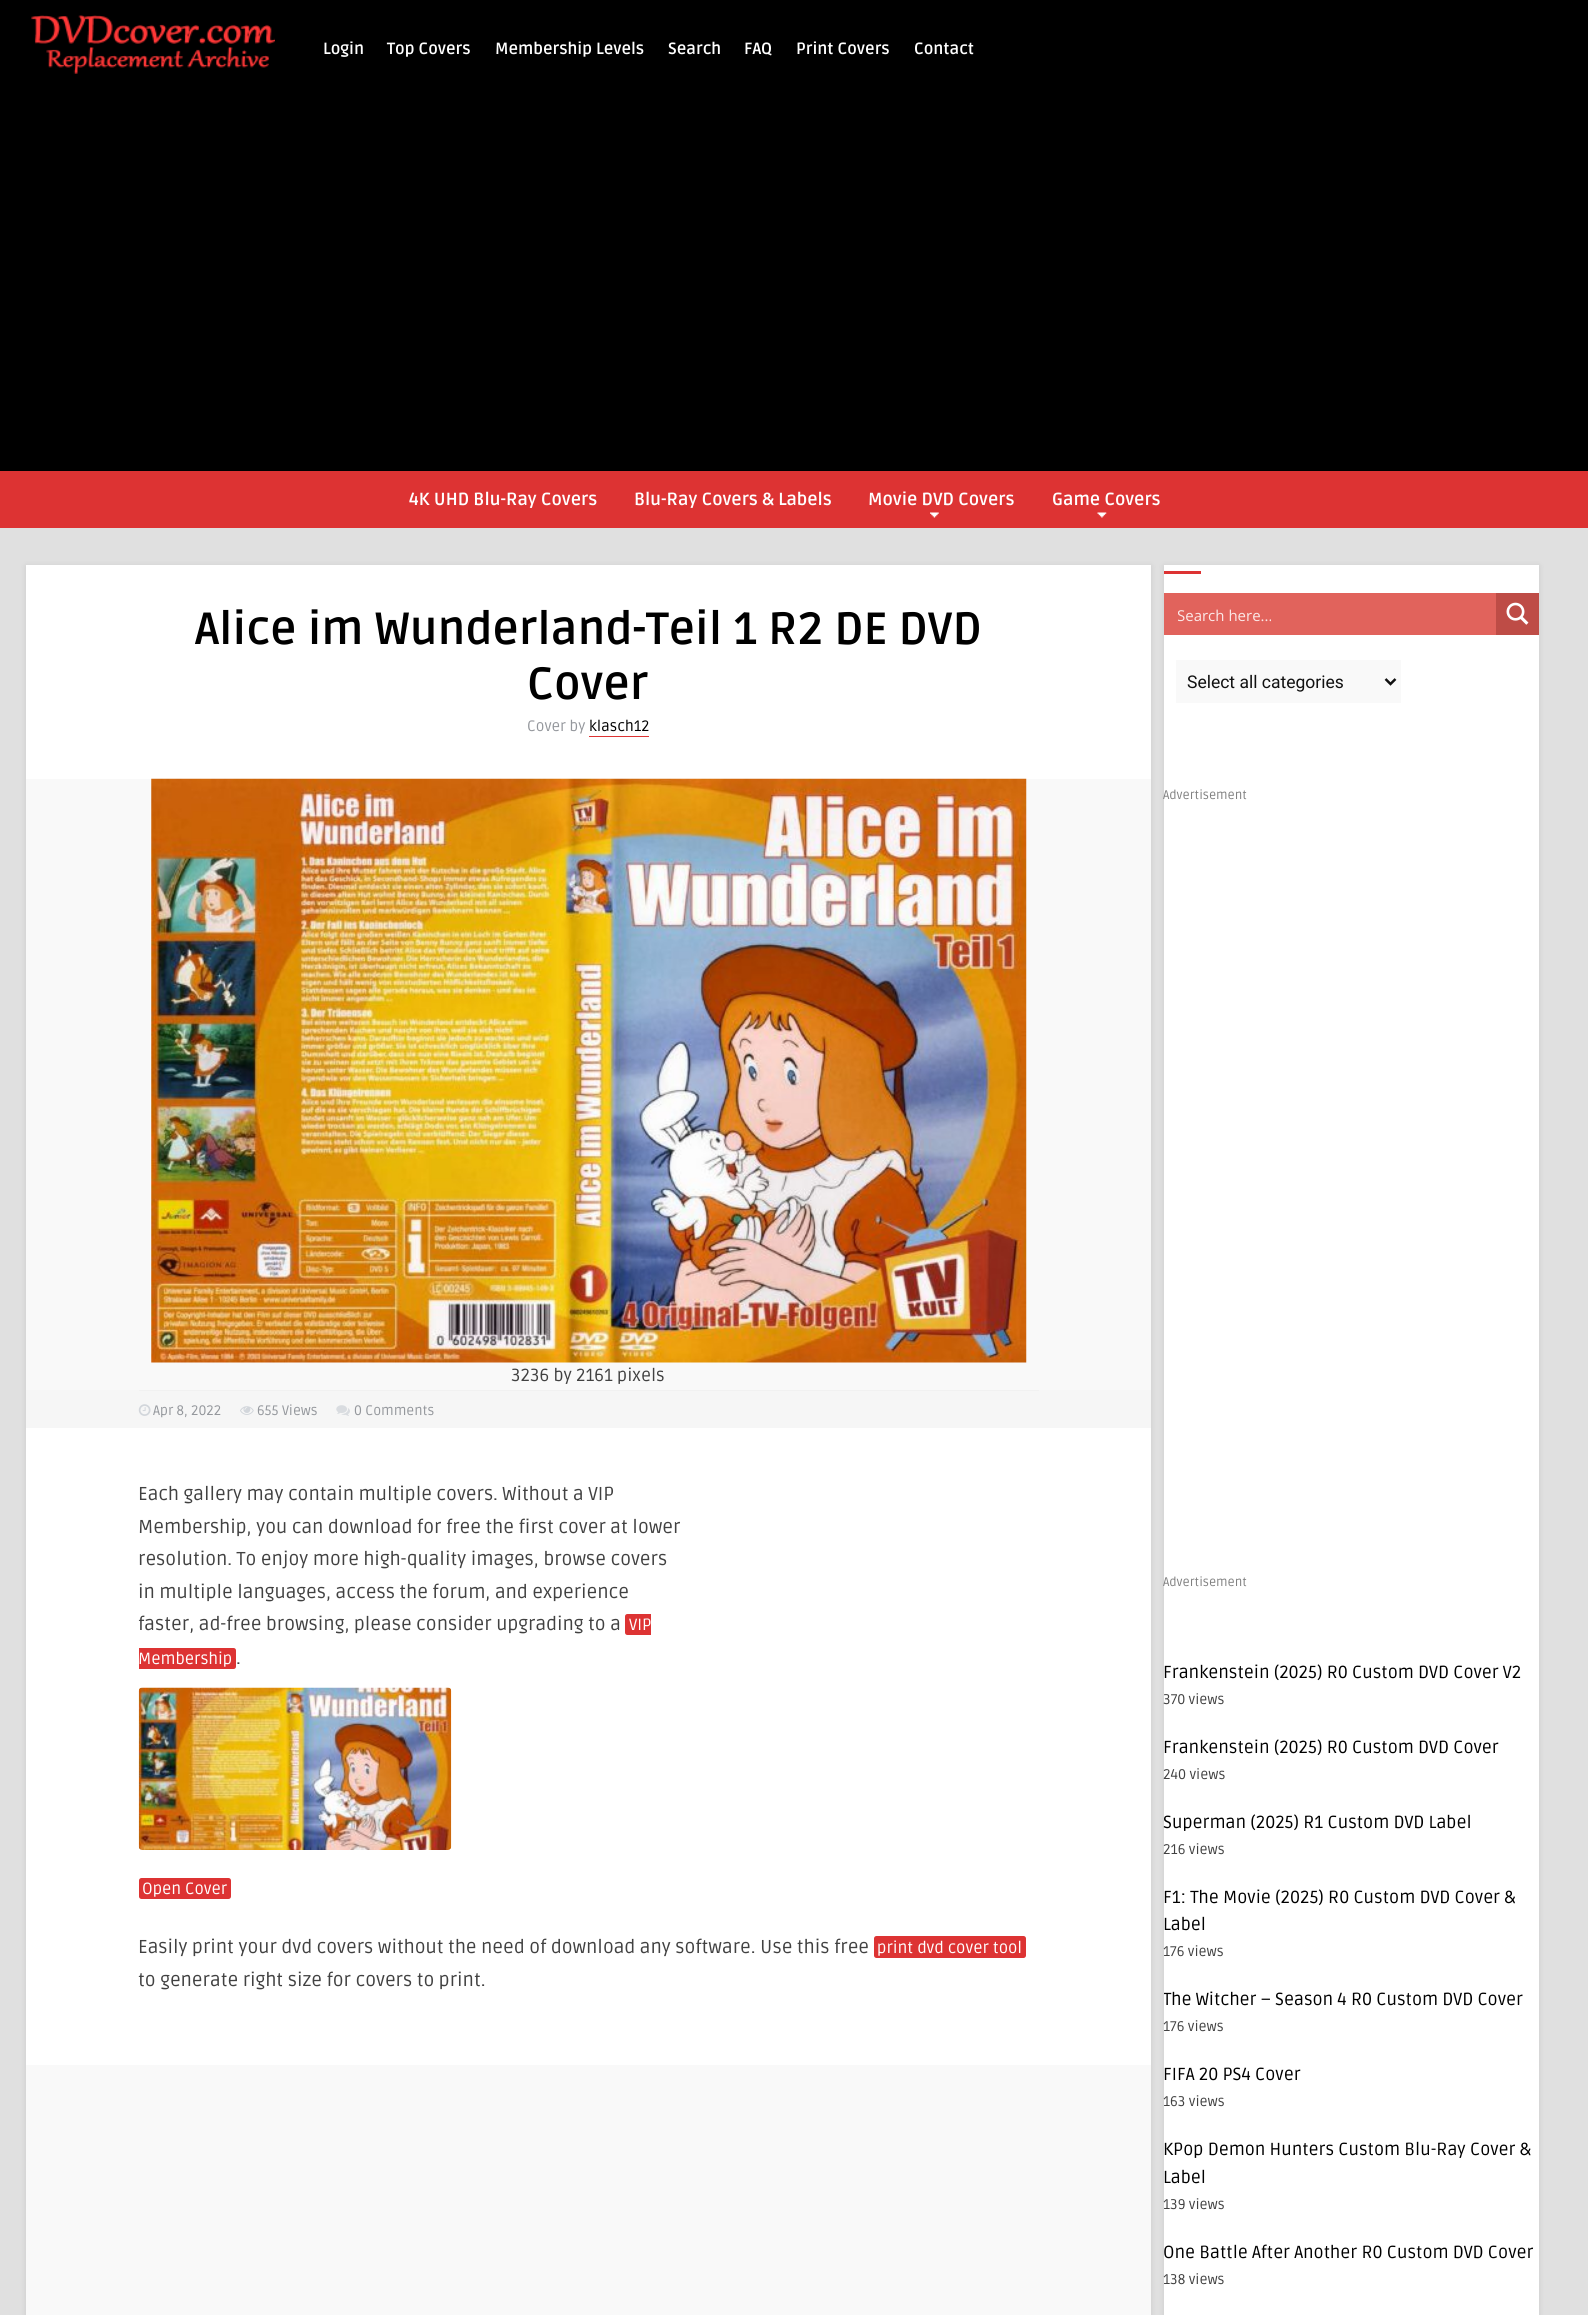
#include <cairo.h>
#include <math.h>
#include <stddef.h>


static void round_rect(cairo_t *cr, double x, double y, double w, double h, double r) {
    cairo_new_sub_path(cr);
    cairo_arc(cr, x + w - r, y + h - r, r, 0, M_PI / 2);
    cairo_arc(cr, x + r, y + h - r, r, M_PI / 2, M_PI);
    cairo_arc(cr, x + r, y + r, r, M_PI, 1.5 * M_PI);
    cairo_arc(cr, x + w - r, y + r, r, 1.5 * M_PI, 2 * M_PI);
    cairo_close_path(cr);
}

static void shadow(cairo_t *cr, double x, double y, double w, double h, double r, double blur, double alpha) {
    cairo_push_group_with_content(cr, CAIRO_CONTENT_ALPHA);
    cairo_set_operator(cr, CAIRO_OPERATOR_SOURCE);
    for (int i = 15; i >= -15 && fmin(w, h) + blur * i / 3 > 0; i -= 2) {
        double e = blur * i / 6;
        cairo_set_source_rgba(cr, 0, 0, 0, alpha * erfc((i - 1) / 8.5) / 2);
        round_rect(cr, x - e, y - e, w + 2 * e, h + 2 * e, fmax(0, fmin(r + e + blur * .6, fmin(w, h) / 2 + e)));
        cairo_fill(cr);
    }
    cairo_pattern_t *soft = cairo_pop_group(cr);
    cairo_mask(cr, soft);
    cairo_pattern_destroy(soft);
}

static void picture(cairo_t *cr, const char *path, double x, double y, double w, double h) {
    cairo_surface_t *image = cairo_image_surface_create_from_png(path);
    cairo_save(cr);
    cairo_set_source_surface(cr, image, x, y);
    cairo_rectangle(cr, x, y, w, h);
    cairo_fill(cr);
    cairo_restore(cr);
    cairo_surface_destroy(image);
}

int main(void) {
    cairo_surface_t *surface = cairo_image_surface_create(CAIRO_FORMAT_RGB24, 1588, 2315);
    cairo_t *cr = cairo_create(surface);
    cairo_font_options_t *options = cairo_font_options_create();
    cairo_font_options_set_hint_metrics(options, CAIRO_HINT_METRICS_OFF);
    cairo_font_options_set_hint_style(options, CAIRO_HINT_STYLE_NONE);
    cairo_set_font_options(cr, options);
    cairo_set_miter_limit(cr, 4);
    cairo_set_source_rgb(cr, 0.878, 0.878, 0.878);
    cairo_paint(cr);
    cairo_set_source_rgb(cr, 0, 0, 0);
    cairo_rectangle(cr, 0, 0, 1588, 471);
    cairo_fill(cr);
    picture(cr, "img1.png", 31, 15, 244, 59);
    cairo_select_font_face(cr, "Ruda", CAIRO_FONT_SLANT_NORMAL, CAIRO_FONT_WEIGHT_BOLD);
    cairo_set_font_size(cr, 16.25);
    cairo_set_source_rgb(cr, 1, 1, 1);
    cairo_move_to(cr, 323, 54);
    cairo_show_text(cr, "Login");
    cairo_move_to(cr, 387, 54);
    cairo_show_text(cr, "Top Covers");
    cairo_move_to(cr, 495, 54);
    cairo_show_text(cr, "Membership Levels");
    cairo_move_to(cr, 668, 54);
    cairo_show_text(cr, "Search");
    cairo_move_to(cr, 744, 54);
    cairo_show_text(cr, "FAQ");
    cairo_move_to(cr, 796, 54);
    cairo_show_text(cr, "Print Covers");
    cairo_move_to(cr, 914, 54);
    cairo_show_text(cr, "Contact");
    cairo_set_source_rgb(cr, 0.867, 0.2, 0.2);
    cairo_rectangle(cr, 0, 471, 1588, 57);
    cairo_fill(cr);
    cairo_set_font_size(cr, 17.5);
    cairo_set_source_rgb(cr, 1, 1, 1);
    cairo_move_to(cr, 409, 505);
    cairo_show_text(cr, "4K UHD Blu-Ray Covers");
    cairo_move_to(cr, 634, 505);
    cairo_show_text(cr, "Blu-Ray Covers & Labels");
    cairo_move_to(cr, 868, 505);
    cairo_show_text(cr, "Movie DVD Covers");
    picture(cr, "img2.png", 930, 512, 9, 6);
    cairo_move_to(cr, 1052, 505);
    cairo_show_text(cr, "Game Covers");
    picture(cr, "img3.png", 1097, 512, 10, 6);
    cairo_set_source_rgb(cr, 0, 0, 0);
    shadow(cr, 26, 566, 1125, 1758, 0, 3, 0.1);
    cairo_set_source_rgb(cr, 1, 1, 1);
    cairo_rectangle(cr, 26, 565, 1125, 1500);
    cairo_fill(cr);
    cairo_set_font_size(cr, 45);
    cairo_set_source_rgb(cr, 0, 0, 0);
    cairo_move_to(cr, 195, 644);
    cairo_show_text(cr, "Alice im Wunderland-Teil 1 R2 DE DVD");
    cairo_move_to(cr, 527, 699);
    cairo_show_text(cr, "Cover");
    cairo_select_font_face(cr, "Ruda", CAIRO_FONT_SLANT_NORMAL, CAIRO_FONT_WEIGHT_NORMAL);
    cairo_set_font_size(cr, 15);
    cairo_set_source_rgb(cr, 0.58, 0.592, 0.612);
    cairo_move_to(cr, 527, 731);
    cairo_show_text(cr, "Cover by");
    cairo_set_source_rgb(cr, 0, 0, 0);
    cairo_move_to(cr, 589, 731);
    cairo_show_text(cr, "klasch12");
    cairo_set_source_rgb(cr, 0.867, 0.2, 0.2);
    cairo_rectangle(cr, 589, 736, 60, 1);
    cairo_fill(cr);
    cairo_set_source_rgb(cr, 0.976, 0.976, 0.976);
    cairo_rectangle(cr, 26, 779, 1125, 611);
    cairo_fill(cr);
    picture(cr, "img4.png", 151, 778, 876, 585);
    cairo_set_font_size(cr, 17.5);
    cairo_set_source_rgb(cr, 0.255, 0.255, 0.255);
    cairo_move_to(cr, 511, 1381);
    cairo_show_text(cr, "3236 by 2161 pixels");
    cairo_set_source_rgb(cr, 0.961, 0.961, 0.961);
    cairo_rectangle(cr, 26, 1390, 1125, 38);
    cairo_fill(cr);
    cairo_set_source_rgb(cr, 0.945, 0.945, 0.945);
    cairo_rectangle(cr, 139, 1390, 900, 1);
    cairo_fill(cr);
    picture(cr, "img5.png", 138, 1404, 13, 12);
    cairo_set_font_size(cr, 13.75);
    cairo_set_source_rgb(cr, 0.58, 0.592, 0.612);
    cairo_move_to(cr, 153, 1415);
    cairo_show_text(cr, "Apr 8, 2022");
    picture(cr, "img6.png", 240, 1406, 14, 9);
    cairo_move_to(cr, 257, 1415);
    cairo_show_text(cr, "655 Views");
    picture(cr, "img7.png", 336, 1405, 14, 11);
    cairo_move_to(cr, 354, 1415);
    cairo_show_text(cr, "0 Comments");
    cairo_set_font_size(cr, 18.75);
    cairo_set_source_rgb(cr, 0.255, 0.255, 0.255);
    cairo_move_to(cr, 138, 1500);
    cairo_show_text(cr, "Each gallery may contain multiple covers. Without a VIP");
    cairo_move_to(cr, 138, 1533);
    cairo_show_text(cr, "Membership, you can download for free the first cover at lower");
    cairo_move_to(cr, 138, 1565);
    cairo_show_text(cr, "resolution. To enjoy more high-quality images, browse covers");
    cairo_move_to(cr, 138, 1598);
    cairo_show_text(cr, "in multiple languages, access the forum, and experience");
    cairo_move_to(cr, 138, 1630);
    cairo_show_text(cr, "faster, ad-free browsing, please consider upgrading to a");
    cairo_set_source_rgb(cr, 0.867, 0.2, 0.2);
    cairo_new_path(cr);
    cairo_move_to(cr, 627.5, 1614);
    cairo_line_to(cr, 651, 1614);
    cairo_line_to(cr, 651, 1635);
    cairo_line_to(cr, 627.5, 1635);
    cairo_curve_to(cr, 626, 1635, 625, 1634, 625, 1632.5);
    cairo_line_to(cr, 625, 1616.5);
    cairo_curve_to(cr, 625, 1615, 626, 1614, 627.5, 1614);
    cairo_close_path(cr);
    cairo_fill(cr);
    cairo_set_font_size(cr, 16.25);
    cairo_set_source_rgb(cr, 1, 1, 1);
    cairo_move_to(cr, 629, 1630);
    cairo_show_text(cr, "VIP");
    cairo_set_source_rgb(cr, 0.867, 0.2, 0.2);
    cairo_new_path(cr);
    cairo_move_to(cr, 139, 1648);
    cairo_line_to(cr, 233.5, 1648);
    cairo_curve_to(cr, 235, 1648, 236, 1649, 236, 1650.5);
    cairo_line_to(cr, 236, 1666.5);
    cairo_curve_to(cr, 236, 1668, 235, 1669, 233.5, 1669);
    cairo_line_to(cr, 139, 1669);
    cairo_close_path(cr);
    cairo_fill(cr);
    cairo_set_source_rgb(cr, 1, 1, 1);
    cairo_move_to(cr, 138, 1664);
    cairo_show_text(cr, "Membership");
    cairo_set_font_size(cr, 18.75);
    cairo_set_source_rgb(cr, 0.255, 0.255, 0.255);
    cairo_move_to(cr, 236, 1664);
    cairo_show_text(cr, ".");
    picture(cr, "img8.png", 138, 1687, 314, 163);
    cairo_set_source_rgb(cr, 0.867, 0.2, 0.2);
    round_rect(cr, 139, 1878, 92, 21, 2.5);
    cairo_fill(cr);
    cairo_set_font_size(cr, 16.25);
    cairo_set_source_rgb(cr, 1, 1, 1);
    cairo_move_to(cr, 142, 1894);
    cairo_show_text(cr, "Open Cover");
    cairo_set_font_size(cr, 18.75);
    cairo_set_source_rgb(cr, 0.255, 0.255, 0.255);
    cairo_move_to(cr, 138, 1953);
    cairo_show_text(cr, "Easily print your dvd covers without the need of download any software. Use this free");
    cairo_set_source_rgb(cr, 0.867, 0.2, 0.2);
    round_rect(cr, 874, 1936, 152, 22, 2.5);
    cairo_fill(cr);
    cairo_set_font_size(cr, 16.25);
    cairo_set_source_rgb(cr, 1, 1, 1);
    cairo_move_to(cr, 877, 1953);
    cairo_show_text(cr, "print dvd cover tool");
    cairo_set_font_size(cr, 18.75);
    cairo_set_source_rgb(cr, 0.255, 0.255, 0.255);
    cairo_move_to(cr, 138, 1986);
    cairo_show_text(cr, "to generate right size for covers to print.");
    cairo_set_source_rgb(cr, 0.976, 0.976, 0.976);
    cairo_rectangle(cr, 26, 2065, 1125, 250);
    cairo_fill(cr);
    cairo_set_source_rgb(cr, 0, 0, 0);
    shadow(cr, 1164, 566, 375, 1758, 0, 3, 0.1);
    cairo_set_source_rgb(cr, 1, 1, 1);
    cairo_rectangle(cr, 1164, 565, 375, 1750);
    cairo_fill(cr);
    cairo_set_source_rgb(cr, 0.867, 0.2, 0.2);
    cairo_rectangle(cr, 1164, 571, 37, 3);
    cairo_fill(cr);
    cairo_set_source_rgb(cr, 0.882, 0.388, 0.361);
    cairo_rectangle(cr, 1164, 593, 332, 42);
    cairo_fill(cr);
    cairo_save(cr);
    cairo_rectangle(cr, 1178, 605, 307, 21);
    cairo_clip(cr);
    cairo_select_font_face(cr, "Open Sans", CAIRO_FONT_SLANT_NORMAL, CAIRO_FONT_WEIGHT_NORMAL);
    cairo_set_font_size(cr, 15);
    cairo_set_source_rgb(cr, 0.984, 0.91, 0.906);
    cairo_move_to(cr, 1177, 621);
    cairo_show_text(cr, "Search here...");
    cairo_restore(cr);
    cairo_set_source_rgb(cr, 0.745, 0.298, 0.275);
    cairo_rectangle(cr, 1496, 593, 43, 42);
    cairo_fill(cr);
    picture(cr, "img9.png", 1506, 602, 23, 23);
    cairo_set_source_rgb(cr, 0.976, 0.976, 0.976);
    cairo_rectangle(cr, 1176, 660, 225, 43);
    cairo_fill(cr);
    cairo_new_path(cr);
    cairo_move_to(cr, 1385.5, 679);
    cairo_line_to(cr, 1390.5, 684);
    cairo_line_to(cr, 1395.5, 679);
    cairo_set_source_rgb(cr, 0.067, 0.067, 0.067);
    cairo_set_line_width(cr, 2.5);
    cairo_stroke(cr);
    cairo_select_font_face(cr, "Roboto", CAIRO_FONT_SLANT_NORMAL, CAIRO_FONT_WEIGHT_NORMAL);
    cairo_set_font_size(cr, 17.5);
    cairo_move_to(cr, 1187, 688);
    cairo_show_text(cr, "Select all categories");
    cairo_select_font_face(cr, "Ruda", CAIRO_FONT_SLANT_NORMAL, CAIRO_FONT_WEIGHT_NORMAL);
    cairo_set_font_size(cr, 12.5);
    cairo_set_source_rgb(cr, 0.502, 0.502, 0.502);
    cairo_move_to(cr, 1163, 799);
    cairo_show_text(cr, "Advertisement");
    cairo_move_to(cr, 1163, 1586);
    cairo_show_text(cr, "Advertisement");
    cairo_set_font_size(cr, 17.5);
    cairo_set_source_rgb(cr, 0, 0, 0);
    cairo_move_to(cr, 1163, 1678);
    cairo_show_text(cr, "Frankenstein (2025) R0 Custom DVD Cover V2");
    cairo_set_font_size(cr, 14);
    cairo_set_source_rgb(cr, 0.255, 0.255, 0.255);
    cairo_move_to(cr, 1163, 1704);
    cairo_show_text(cr, "370 views");
    cairo_set_font_size(cr, 17.5);
    cairo_set_source_rgb(cr, 0, 0, 0);
    cairo_move_to(cr, 1163, 1753);
    cairo_show_text(cr, "Frankenstein (2025) R0 Custom DVD Cover");
    cairo_set_font_size(cr, 14);
    cairo_set_source_rgb(cr, 0.255, 0.255, 0.255);
    cairo_move_to(cr, 1163, 1779);
    cairo_show_text(cr, "240 views");
    cairo_set_font_size(cr, 17.5);
    cairo_set_source_rgb(cr, 0, 0, 0);
    cairo_move_to(cr, 1163, 1828);
    cairo_show_text(cr, "Superman (2025) R1 Custom DVD Label");
    cairo_set_font_size(cr, 14);
    cairo_set_source_rgb(cr, 0.255, 0.255, 0.255);
    cairo_move_to(cr, 1163, 1854);
    cairo_show_text(cr, "216 views");
    cairo_set_font_size(cr, 17.5);
    cairo_set_source_rgb(cr, 0, 0, 0);
    cairo_move_to(cr, 1163, 1903);
    cairo_show_text(cr, "F1: The Movie (2025) R0 Custom DVD Cover &");
    cairo_move_to(cr, 1163, 1930);
    cairo_show_text(cr, "Label");
    cairo_set_font_size(cr, 14);
    cairo_set_source_rgb(cr, 0.255, 0.255, 0.255);
    cairo_move_to(cr, 1163, 1956);
    cairo_show_text(cr, "176 views");
    cairo_save(cr);
    cairo_rectangle(cr, 1164, 1986, 375, 55);
    cairo_clip(cr);
    cairo_set_font_size(cr, 17.5);
    cairo_set_source_rgb(cr, 0, 0, 0);
    cairo_move_to(cr, 1163, 2005);
    cairo_show_text(cr, "The Witcher – Season 4 R0 Custom DVD Cover");
    cairo_restore(cr);
    cairo_move_to(cr, 1163, 2031);
    cairo_show_text(cr, "176 views");
    cairo_set_font_size(cr, 17.5);
    cairo_set_source_rgb(cr, 0, 0, 0);
    cairo_move_to(cr, 1163, 2080);
    cairo_show_text(cr, "FIFA 20 PS4 Cover");
    cairo_set_font_size(cr, 14);
    cairo_set_source_rgb(cr, 0.255, 0.255, 0.255);
    cairo_move_to(cr, 1163, 2106);
    cairo_show_text(cr, "163 views");
    cairo_set_font_size(cr, 17.5);
    cairo_set_source_rgb(cr, 0, 0, 0);
    cairo_move_to(cr, 1163, 2155);
    cairo_show_text(cr, "KPop Demon Hunters Custom Blu-Ray Cover &");
    cairo_move_to(cr, 1163, 2183);
    cairo_show_text(cr, "Label");
    cairo_set_font_size(cr, 14);
    cairo_set_source_rgb(cr, 0.255, 0.255, 0.255);
    cairo_move_to(cr, 1163, 2209);
    cairo_show_text(cr, "139 views");
    cairo_set_font_size(cr, 17.5);
    cairo_set_source_rgb(cr, 0, 0, 0);
    cairo_move_to(cr, 1163, 2258);
    cairo_show_text(cr, "One Battle After Another R0 Custom DVD Cover");
    cairo_set_font_size(cr, 14);
    cairo_set_source_rgb(cr, 0.255, 0.255, 0.255);
    cairo_move_to(cr, 1163, 2284);
    cairo_show_text(cr, "138 views");
    cairo_surface_write_to_png(surface, "page.png");
    cairo_font_options_destroy(options);
    cairo_destroy(cr);
    cairo_surface_destroy(surface);
    return 0;
}
